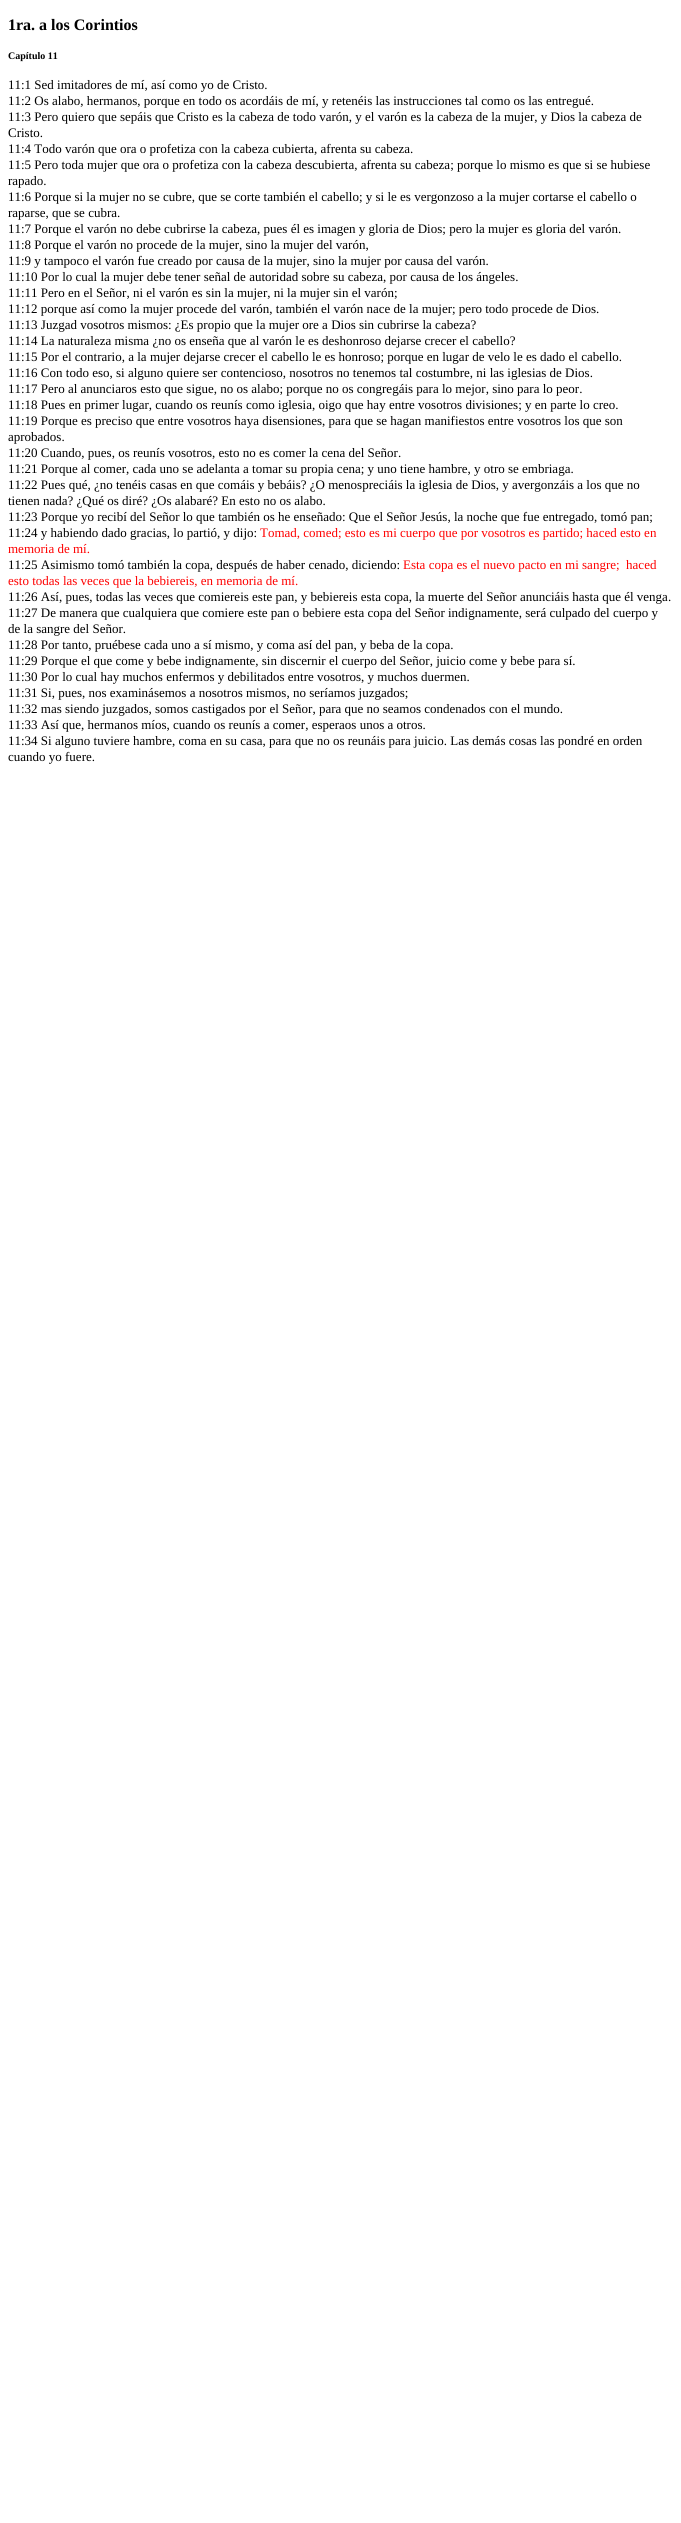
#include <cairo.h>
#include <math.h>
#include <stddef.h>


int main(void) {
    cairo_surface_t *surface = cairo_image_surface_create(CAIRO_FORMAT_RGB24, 681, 2523);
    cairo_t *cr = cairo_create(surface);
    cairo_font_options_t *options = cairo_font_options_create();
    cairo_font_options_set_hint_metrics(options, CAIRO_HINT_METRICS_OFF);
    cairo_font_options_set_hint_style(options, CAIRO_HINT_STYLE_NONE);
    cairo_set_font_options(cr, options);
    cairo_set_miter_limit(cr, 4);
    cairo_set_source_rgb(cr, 1, 1, 1);
    cairo_paint(cr);
    cairo_select_font_face(cr, "Liberation Serif", CAIRO_FONT_SLANT_NORMAL, CAIRO_FONT_WEIGHT_BOLD);
    cairo_set_font_size(cr, 16);
    cairo_set_source_rgb(cr, 0, 0, 0);
    cairo_move_to(cr, 8, 30);
    cairo_show_text(cr, "1ra. a los Corintios");
    cairo_set_font_size(cr, 10);
    cairo_move_to(cr, 8, 59);
    cairo_show_text(cr, "Capítulo 11");
    cairo_select_font_face(cr, "Liberation Serif", CAIRO_FONT_SLANT_NORMAL, CAIRO_FONT_WEIGHT_NORMAL);
    cairo_set_font_size(cr, 13);
    cairo_move_to(cr, 8, 89);
    cairo_show_text(cr, "11:1 Sed imitadores de mí, así como yo de Cristo.");
    cairo_move_to(cr, 8, 105);
    cairo_show_text(cr, "11:2 Os alabo, hermanos, porque en todo os acordáis de mí, y retenéis las instrucciones tal como os las entregué.");
    cairo_move_to(cr, 8, 121);
    cairo_show_text(cr, "11:3 Pero quiero que sepáis que Cristo es la cabeza de todo varón, y el varón es la cabeza de la mujer, y Dios la cabeza de");
    cairo_move_to(cr, 8, 137);
    cairo_show_text(cr, "Cristo.");
    cairo_move_to(cr, 8, 153);
    cairo_show_text(cr, "11:4 Todo varón que ora o profetiza con la cabeza cubierta, afrenta su cabeza.");
    cairo_move_to(cr, 8, 169);
    cairo_show_text(cr, "11:5 Pero toda mujer que ora o profetiza con la cabeza descubierta, afrenta su cabeza; porque lo mismo es que si se hubiese");
    cairo_move_to(cr, 8, 185);
    cairo_show_text(cr, "rapado.");
    cairo_move_to(cr, 8, 201);
    cairo_show_text(cr, "11:6 Porque si la mujer no se cubre, que se corte también el cabello; y si le es vergonzoso a la mujer cortarse el cabello o");
    cairo_move_to(cr, 8, 217);
    cairo_show_text(cr, "raparse, que se cubra.");
    cairo_move_to(cr, 8, 233);
    cairo_show_text(cr, "11:7 Porque el varón no debe cubrirse la cabeza, pues él es imagen y gloria de Dios; pero la mujer es gloria del varón.");
    cairo_move_to(cr, 8, 249);
    cairo_show_text(cr, "11:8 Porque el varón no procede de la mujer, sino la mujer del varón,");
    cairo_move_to(cr, 8, 265);
    cairo_show_text(cr, "11:9 y tampoco el varón fue creado por causa de la mujer, sino la mujer por causa del varón.");
    cairo_move_to(cr, 8, 281);
    cairo_show_text(cr, "11:10 Por lo cual la mujer debe tener señal de autoridad sobre su cabeza, por causa de los ángeles.");
    cairo_move_to(cr, 8, 297);
    cairo_show_text(cr, "11:11 Pero en el Señor, ni el varón es sin la mujer, ni la mujer sin el varón;");
    cairo_move_to(cr, 8, 313);
    cairo_show_text(cr, "11:12 porque así como la mujer procede del varón, también el varón nace de la mujer; pero todo procede de Dios.");
    cairo_move_to(cr, 8, 329);
    cairo_show_text(cr, "11:13 Juzgad vosotros mismos: ¿Es propio que la mujer ore a Dios sin cubrirse la cabeza?");
    cairo_move_to(cr, 8, 345);
    cairo_show_text(cr, "11:14 La naturaleza misma ¿no os enseña que al varón le es deshonroso dejarse crecer el cabello?");
    cairo_move_to(cr, 8, 361);
    cairo_show_text(cr, "11:15 Por el contrario, a la mujer dejarse crecer el cabello le es honroso; porque en lugar de velo le es dado el cabello.");
    cairo_move_to(cr, 8, 377);
    cairo_show_text(cr, "11:16 Con todo eso, si alguno quiere ser contencioso, nosotros no tenemos tal costumbre, ni las iglesias de Dios.");
    cairo_move_to(cr, 8, 393);
    cairo_show_text(cr, "11:17 Pero al anunciaros esto que sigue, no os alabo; porque no os congregáis para lo mejor, sino para lo peor.");
    cairo_move_to(cr, 8, 409);
    cairo_show_text(cr, "11:18 Pues en primer lugar, cuando os reunís como iglesia, oigo que hay entre vosotros divisiones; y en parte lo creo.");
    cairo_move_to(cr, 8, 425);
    cairo_show_text(cr, "11:19 Porque es preciso que entre vosotros haya disensiones, para que se hagan manifiestos entre vosotros los que son");
    cairo_move_to(cr, 8, 441);
    cairo_show_text(cr, "aprobados.");
    cairo_move_to(cr, 8, 457);
    cairo_show_text(cr, "11:20 Cuando, pues, os reunís vosotros, esto no es comer la cena del Señor.");
    cairo_move_to(cr, 8, 473);
    cairo_show_text(cr, "11:21 Porque al comer, cada uno se adelanta a tomar su propia cena; y uno tiene hambre, y otro se embriaga.");
    cairo_move_to(cr, 8, 489);
    cairo_show_text(cr, "11:22 Pues qué, ¿no tenéis casas en que comáis y bebáis? ¿O menospreciáis la iglesia de Dios, y avergonzáis a los que no");
    cairo_move_to(cr, 8, 505);
    cairo_show_text(cr, "tienen nada? ¿Qué os diré? ¿Os alabaré? En esto no os alabo.");
    cairo_move_to(cr, 8, 521);
    cairo_show_text(cr, "11:23 Porque yo recibí del Señor lo que también os he enseñado: Que el Señor Jesús, la noche que fue entregado, tomó pan;");
    cairo_move_to(cr, 8, 537);
    cairo_show_text(cr, "11:24 y habiendo dado gracias, lo partió, y dijo:");
    cairo_set_source_rgb(cr, 1, 0, 0);
    cairo_move_to(cr, 260, 537);
    cairo_show_text(cr, "Tomad, comed; esto es mi cuerpo que por vosotros es partido; haced esto en");
    cairo_move_to(cr, 8, 553);
    cairo_show_text(cr, "memoria de mí.");
    cairo_set_source_rgb(cr, 0, 0, 0);
    cairo_move_to(cr, 8, 569);
    cairo_show_text(cr, "11:25 Asimismo tomó también la copa, después de haber cenado, diciendo:");
    cairo_set_source_rgb(cr, 1, 0, 0);
    cairo_move_to(cr, 403, 569);
    cairo_show_text(cr, "Esta copa es el nuevo pacto en mi sangre;  haced");
    cairo_move_to(cr, 8, 585);
    cairo_show_text(cr, "esto todas las veces que la bebiereis, en memoria de mí.");
    cairo_set_source_rgb(cr, 0, 0, 0);
    cairo_move_to(cr, 8, 601);
    cairo_show_text(cr, "11:26 Así, pues, todas las veces que comiereis este pan, y bebiereis esta copa, la muerte del Señor anunciáis hasta que él venga.");
    cairo_move_to(cr, 8, 617);
    cairo_show_text(cr, "11:27 De manera que cualquiera que comiere este pan o bebiere esta copa del Señor indignamente, será culpado del cuerpo y");
    cairo_move_to(cr, 8, 633);
    cairo_show_text(cr, "de la sangre del Señor.");
    cairo_move_to(cr, 8, 649);
    cairo_show_text(cr, "11:28 Por tanto, pruébese cada uno a sí mismo, y coma así del pan, y beba de la copa.");
    cairo_move_to(cr, 8, 665);
    cairo_show_text(cr, "11:29 Porque el que come y bebe indignamente, sin discernir el cuerpo del Señor, juicio come y bebe para sí.");
    cairo_move_to(cr, 8, 681);
    cairo_show_text(cr, "11:30 Por lo cual hay muchos enfermos y debilitados entre vosotros, y muchos duermen.");
    cairo_move_to(cr, 8, 697);
    cairo_show_text(cr, "11:31 Si, pues, nos examinásemos a nosotros mismos, no seríamos juzgados;");
    cairo_move_to(cr, 8, 713);
    cairo_show_text(cr, "11:32 mas siendo juzgados, somos castigados por el Señor, para que no seamos condenados con el mundo.");
    cairo_move_to(cr, 8, 729);
    cairo_show_text(cr, "11:33 Así que, hermanos míos, cuando os reunís a comer, esperaos unos a otros.");
    cairo_move_to(cr, 8, 745);
    cairo_show_text(cr, "11:34 Si alguno tuviere hambre, coma en su casa, para que no os reunáis para juicio. Las demás cosas las pondré en orden");
    cairo_move_to(cr, 8, 761);
    cairo_show_text(cr, "cuando yo fuere.");
    cairo_surface_write_to_png(surface, "page.png");
    cairo_font_options_destroy(options);
    cairo_destroy(cr);
    cairo_surface_destroy(surface);
    return 0;
}
